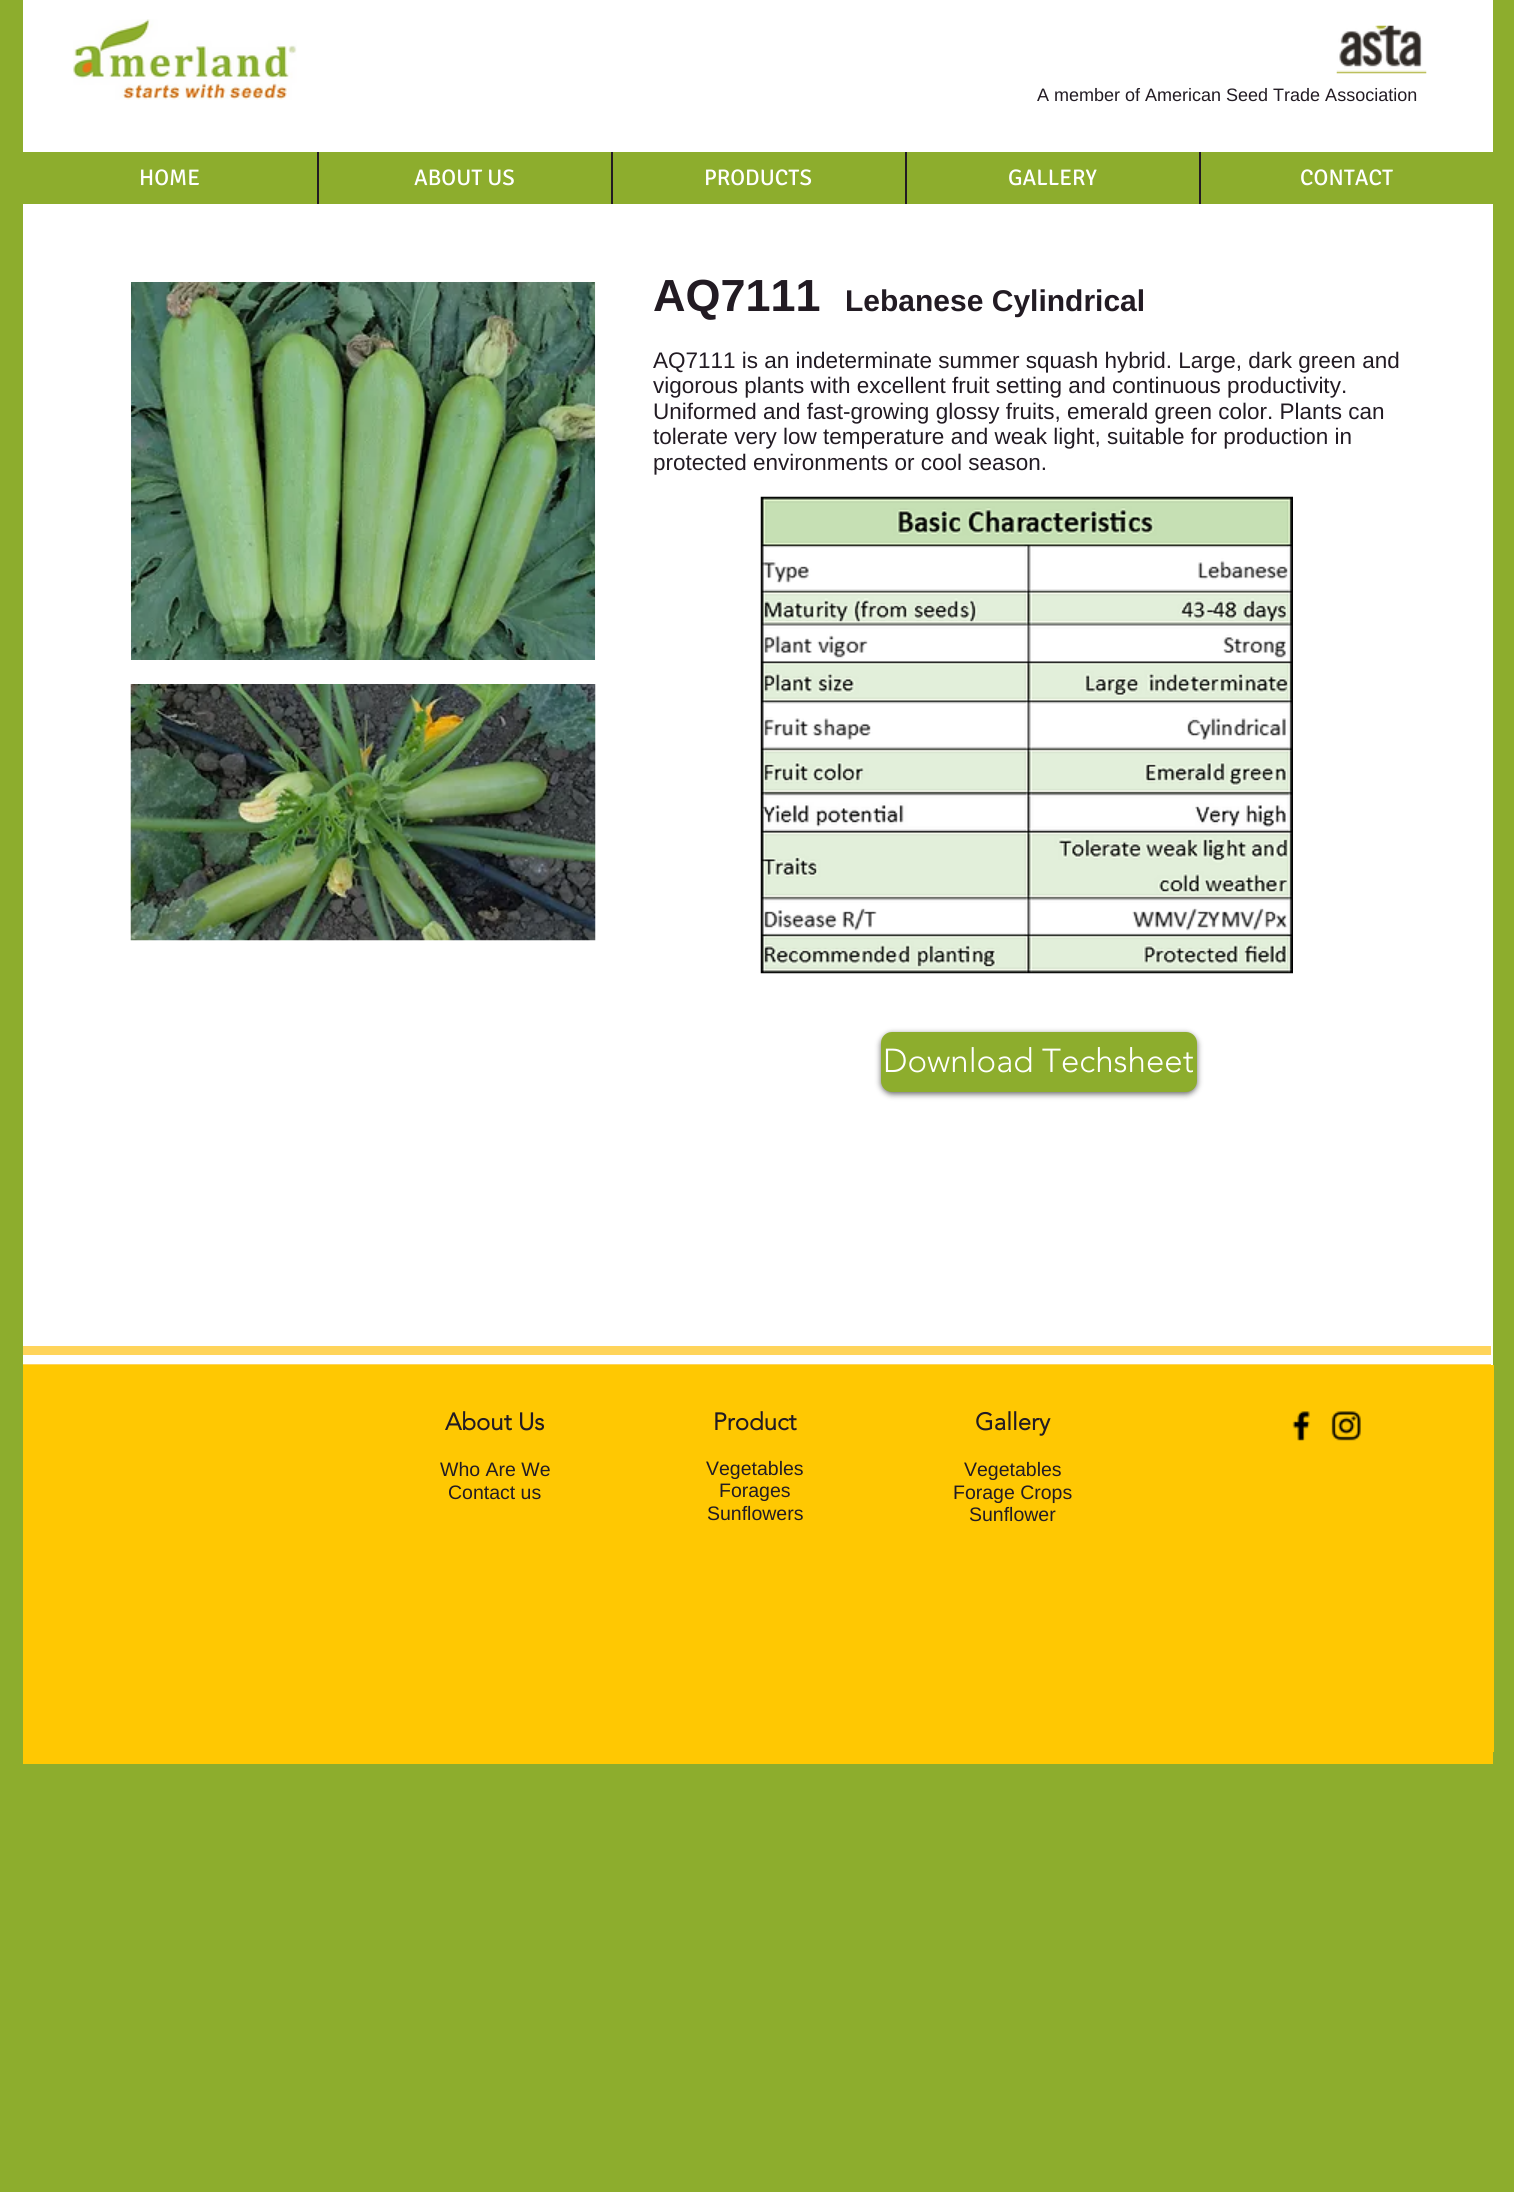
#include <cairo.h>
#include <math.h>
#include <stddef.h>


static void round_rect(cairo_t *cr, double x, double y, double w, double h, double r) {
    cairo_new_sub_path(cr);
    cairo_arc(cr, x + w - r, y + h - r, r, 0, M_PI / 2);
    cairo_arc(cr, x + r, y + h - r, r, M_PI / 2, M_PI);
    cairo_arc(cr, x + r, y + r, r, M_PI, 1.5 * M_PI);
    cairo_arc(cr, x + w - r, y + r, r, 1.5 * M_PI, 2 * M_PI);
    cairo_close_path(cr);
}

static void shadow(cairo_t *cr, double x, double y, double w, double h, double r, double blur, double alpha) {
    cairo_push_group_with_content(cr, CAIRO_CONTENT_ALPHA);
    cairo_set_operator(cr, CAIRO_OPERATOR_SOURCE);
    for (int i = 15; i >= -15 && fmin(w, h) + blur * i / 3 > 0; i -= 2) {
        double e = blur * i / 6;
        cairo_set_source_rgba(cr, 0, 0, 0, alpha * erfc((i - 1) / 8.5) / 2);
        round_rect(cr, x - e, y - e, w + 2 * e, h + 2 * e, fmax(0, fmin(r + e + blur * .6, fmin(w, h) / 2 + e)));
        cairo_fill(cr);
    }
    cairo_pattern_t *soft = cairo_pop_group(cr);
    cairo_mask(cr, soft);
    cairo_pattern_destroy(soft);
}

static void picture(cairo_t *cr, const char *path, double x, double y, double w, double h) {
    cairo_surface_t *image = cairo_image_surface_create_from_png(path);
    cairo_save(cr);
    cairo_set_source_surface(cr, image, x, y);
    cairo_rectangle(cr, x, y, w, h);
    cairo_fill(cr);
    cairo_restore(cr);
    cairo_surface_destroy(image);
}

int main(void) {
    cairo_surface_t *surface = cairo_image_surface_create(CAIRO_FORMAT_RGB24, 1514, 2192);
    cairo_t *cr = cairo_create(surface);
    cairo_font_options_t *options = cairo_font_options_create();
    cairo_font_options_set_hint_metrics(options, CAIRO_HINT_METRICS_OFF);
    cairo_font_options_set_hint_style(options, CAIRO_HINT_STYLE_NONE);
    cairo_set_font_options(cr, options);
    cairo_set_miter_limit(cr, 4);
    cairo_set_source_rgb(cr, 0.553, 0.678, 0.176);
    cairo_paint(cr);
    cairo_set_source_rgb(cr, 1, 1, 1);
    cairo_rectangle(cr, 23, 0, 1470, 152);
    cairo_fill(cr);
    picture(cr, "img1.png", 73, 19, 224, 81);
    picture(cr, "img2.png", 1336, 25, 91, 49);
    cairo_select_font_face(cr, "Liberation Sans", CAIRO_FONT_SLANT_NORMAL, CAIRO_FONT_WEIGHT_NORMAL);
    cairo_set_font_size(cr, 18);
    cairo_set_source_rgb(cr, 0.133, 0.106, 0.137);
    cairo_move_to(cr, 1037, 101);
    cairo_show_text(cr, "A member of American Seed Trade Association");
    cairo_select_font_face(cr, "Signika", CAIRO_FONT_SLANT_NORMAL, CAIRO_FONT_WEIGHT_NORMAL);
    cairo_set_font_size(cr, 22.5);
    cairo_set_source_rgb(cr, 1, 1, 1);
    cairo_move_to(cr, 139, 185);
    cairo_show_text(cr, "HOME");
    cairo_set_source_rgb(cr, 0.133, 0.106, 0.137);
    cairo_rectangle(cr, 317, 152, 2, 52);
    cairo_fill(cr);
    cairo_set_source_rgb(cr, 1, 1, 1);
    cairo_move_to(cr, 414, 185);
    cairo_show_text(cr, "ABOUT US");
    cairo_set_source_rgb(cr, 0.133, 0.106, 0.137);
    cairo_rectangle(cr, 611, 152, 2, 52);
    cairo_fill(cr);
    cairo_set_source_rgb(cr, 1, 1, 1);
    cairo_move_to(cr, 704, 185);
    cairo_show_text(cr, "PRODUCTS");
    cairo_set_source_rgb(cr, 0.133, 0.106, 0.137);
    cairo_rectangle(cr, 905, 152, 2, 52);
    cairo_fill(cr);
    cairo_set_source_rgb(cr, 1, 1, 1);
    cairo_move_to(cr, 1008, 185);
    cairo_show_text(cr, "GALLERY");
    cairo_set_source_rgb(cr, 0.133, 0.106, 0.137);
    cairo_rectangle(cr, 1199, 152, 2, 52);
    cairo_fill(cr);
    cairo_set_source_rgb(cr, 1, 1, 1);
    cairo_move_to(cr, 1300, 185);
    cairo_show_text(cr, "CONTACT");
    cairo_rectangle(cr, 23, 204, 1470, 1161);
    cairo_fill(cr);
    picture(cr, "img3.png", 131, 282, 465, 378);
    cairo_select_font_face(cr, "Liberation Sans", CAIRO_FONT_SLANT_NORMAL, CAIRO_FONT_WEIGHT_BOLD);
    cairo_set_font_size(cr, 45);
    cairo_set_source_rgb(cr, 0.133, 0.106, 0.137);
    cairo_move_to(cr, 653, 311);
    cairo_show_text(cr, "AQ7111");
    cairo_set_font_size(cr, 30);
    cairo_move_to(cr, 845, 311);
    cairo_show_text(cr, "Lebanese Cylindrical");
    cairo_select_font_face(cr, "Liberation Sans", CAIRO_FONT_SLANT_NORMAL, CAIRO_FONT_WEIGHT_NORMAL);
    cairo_set_font_size(cr, 22.5);
    cairo_move_to(cr, 653, 368);
    cairo_show_text(cr, "AQ7111 is an indeterminate summer squash hybrid. Large, dark green and");
    cairo_move_to(cr, 653, 393);
    cairo_show_text(cr, "vigorous plants with excellent fruit setting and continuous productivity.");
    cairo_move_to(cr, 653, 419);
    cairo_show_text(cr, "Uniformed and fast-growing glossy fruits, emerald green color. Plants can");
    cairo_move_to(cr, 653, 444);
    cairo_show_text(cr, "tolerate very low temperature and weak light, suitable for production in");
    cairo_move_to(cr, 653, 470);
    cairo_show_text(cr, "protected environments or cool season.");
    picture(cr, "img4.png", 130, 684, 466, 257);
    picture(cr, "img5.png", 760, 496, 533, 478);
    cairo_set_source_rgb(cr, 0, 0, 0);
    shadow(cr, 881, 1034, 316, 60, 11, 3, 0.6);
    cairo_set_source_rgb(cr, 0.553, 0.678, 0.176);
    round_rect(cr, 881, 1032, 316, 60, 11);
    cairo_fill(cr);
    cairo_select_font_face(cr, "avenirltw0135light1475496 Light", CAIRO_FONT_SLANT_NORMAL, CAIRO_FONT_WEIGHT_NORMAL);
    cairo_set_font_size(cr, 33);
    cairo_set_source_rgb(cr, 1, 1, 1);
    cairo_move_to(cr, 883, 1072);
    cairo_show_text(cr, "Download Techsheet");
    cairo_set_source_rgb(cr, 1, 0.831, 0.353);
    cairo_rectangle(cr, 23, 1346, 1468, 9);
    cairo_fill(cr);
    cairo_rectangle(cr, 23, 1364, 1468, 1);
    cairo_fill(cr);
    cairo_set_source_rgb(cr, 1, 0.784, 0.008);
    cairo_rectangle(cr, 23, 1365, 1471, 387);
    cairo_fill(cr);
    cairo_select_font_face(cr, "avenirltw0135light1475496", CAIRO_FONT_SLANT_NORMAL, CAIRO_FONT_WEIGHT_BOLD);
    cairo_set_font_size(cr, 24);
    cairo_set_source_rgb(cr, 0.133, 0.106, 0.137);
    cairo_move_to(cr, 445, 1430);
    cairo_show_text(cr, "About Us");
    cairo_select_font_face(cr, "Liberation Sans", CAIRO_FONT_SLANT_NORMAL, CAIRO_FONT_WEIGHT_NORMAL);
    cairo_set_font_size(cr, 19.5);
    cairo_move_to(cr, 440, 1476);
    cairo_show_text(cr, "Who Are We");
    cairo_move_to(cr, 448, 1499);
    cairo_show_text(cr, "Contact us");
    cairo_select_font_face(cr, "avenirltw0135light1475496", CAIRO_FONT_SLANT_NORMAL, CAIRO_FONT_WEIGHT_BOLD);
    cairo_set_font_size(cr, 24);
    cairo_move_to(cr, 713, 1430);
    cairo_show_text(cr, "Product");
    cairo_select_font_face(cr, "Liberation Sans", CAIRO_FONT_SLANT_NORMAL, CAIRO_FONT_WEIGHT_NORMAL);
    cairo_set_font_size(cr, 19.5);
    cairo_move_to(cr, 706, 1475);
    cairo_show_text(cr, "Vegetables");
    cairo_move_to(cr, 719, 1497);
    cairo_show_text(cr, "Forages");
    cairo_move_to(cr, 707, 1520);
    cairo_show_text(cr, "Sunflowers");
    cairo_select_font_face(cr, "avenirltw0135light1475496", CAIRO_FONT_SLANT_NORMAL, CAIRO_FONT_WEIGHT_BOLD);
    cairo_set_font_size(cr, 24);
    cairo_move_to(cr, 975, 1430);
    cairo_show_text(cr, "Gallery");
    cairo_select_font_face(cr, "Liberation Sans", CAIRO_FONT_SLANT_NORMAL, CAIRO_FONT_WEIGHT_NORMAL);
    cairo_set_font_size(cr, 19.5);
    cairo_move_to(cr, 964, 1476);
    cairo_show_text(cr, "Vegetables");
    cairo_move_to(cr, 953, 1499);
    cairo_show_text(cr, "Forage Crops");
    cairo_move_to(cr, 969, 1521);
    cairo_show_text(cr, "Sunflower");
    picture(cr, "img6.png", 1292, 1411, 18, 30);
    picture(cr, "img7.png", 1331, 1411, 30, 30);
    cairo_set_source_rgb(cr, 1, 0.784, 0.008);
    cairo_rectangle(cr, 23, 1752, 1470, 12);
    cairo_fill(cr);
    cairo_surface_write_to_png(surface, "page.png");
    cairo_font_options_destroy(options);
    cairo_destroy(cr);
    cairo_surface_destroy(surface);
    return 0;
}
